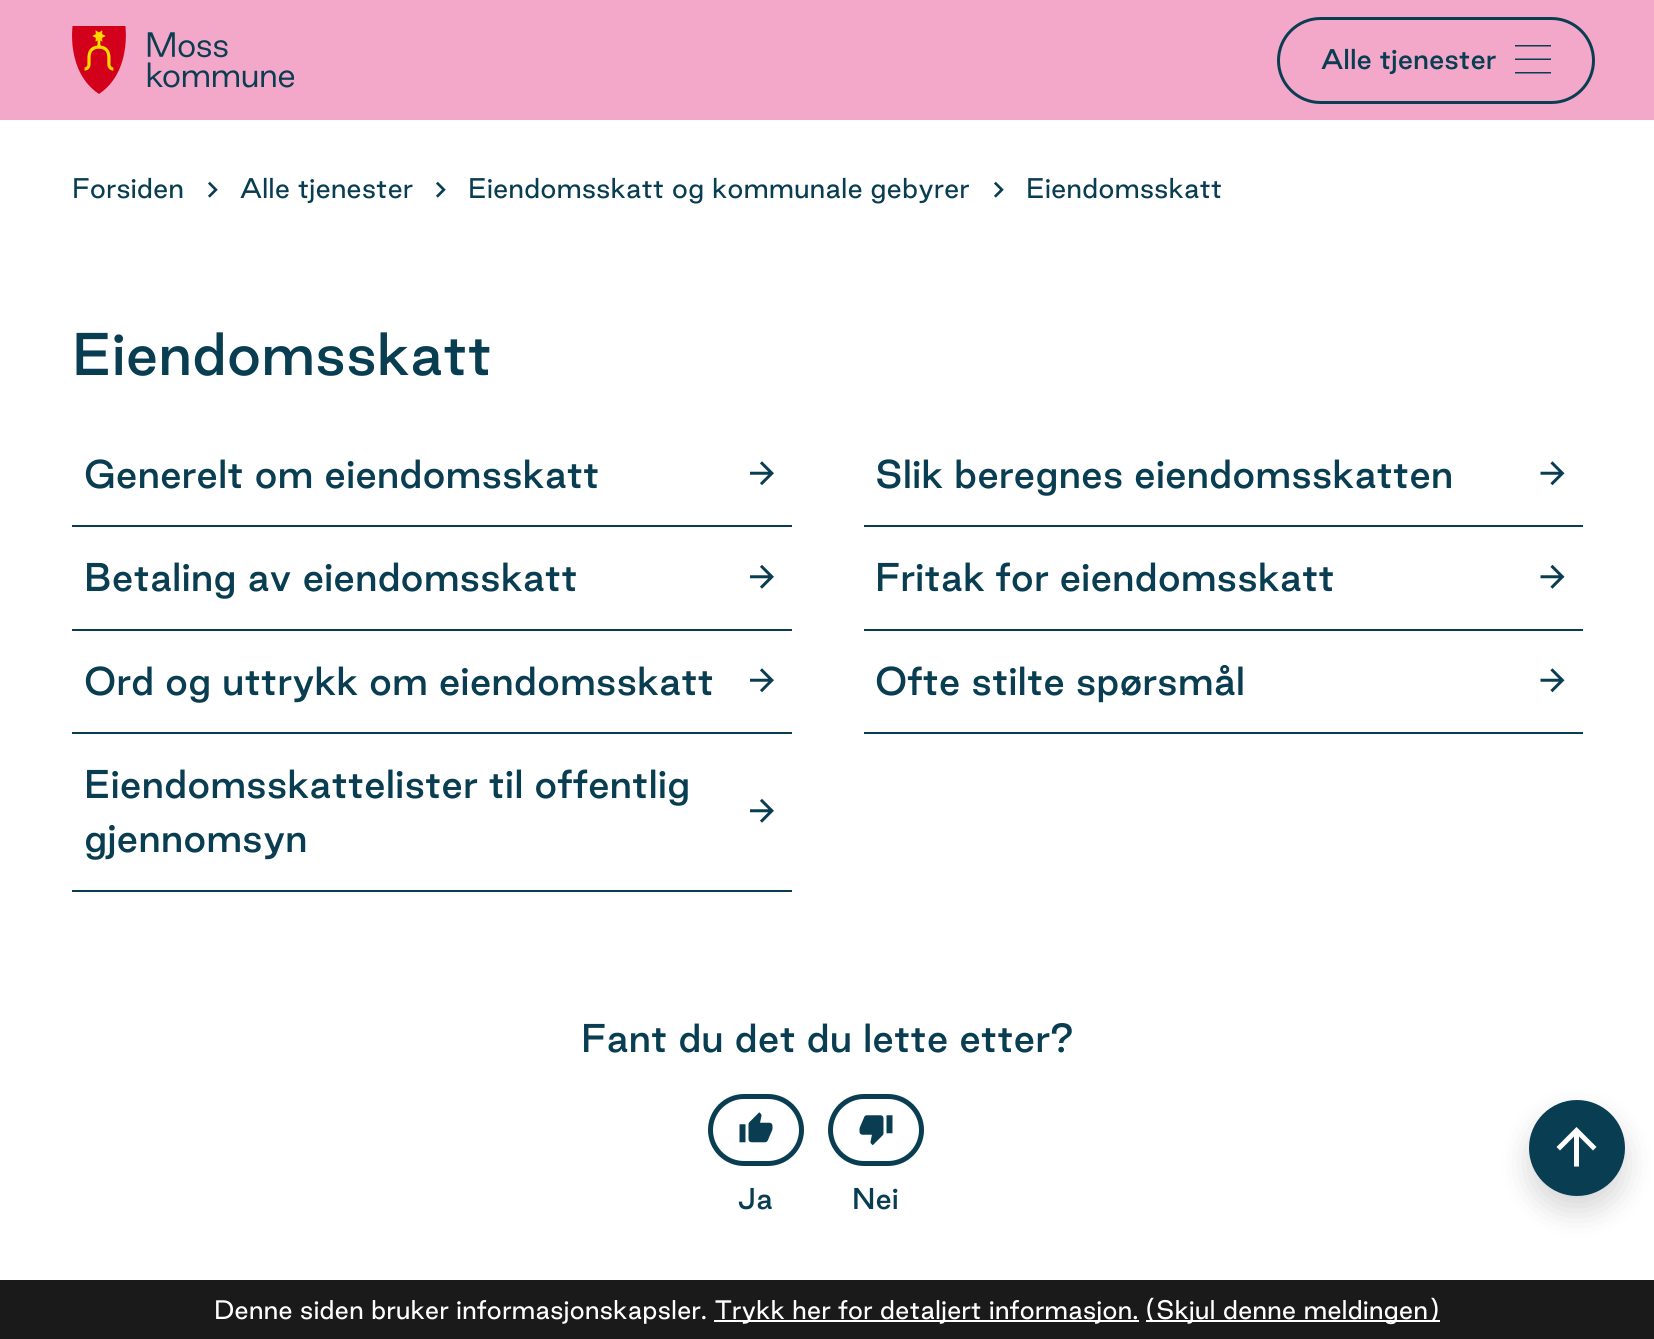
#include <cairo.h>
#include <math.h>
#include <stddef.h>


static void round_rect(cairo_t *cr, double x, double y, double w, double h, double r) {
    cairo_new_sub_path(cr);
    cairo_arc(cr, x + w - r, y + h - r, r, 0, M_PI / 2);
    cairo_arc(cr, x + r, y + h - r, r, M_PI / 2, M_PI);
    cairo_arc(cr, x + r, y + r, r, M_PI, 1.5 * M_PI);
    cairo_arc(cr, x + w - r, y + r, r, 1.5 * M_PI, 2 * M_PI);
    cairo_close_path(cr);
}

static void shadow(cairo_t *cr, double x, double y, double w, double h, double r, double blur, double alpha) {
    cairo_push_group_with_content(cr, CAIRO_CONTENT_ALPHA);
    cairo_set_operator(cr, CAIRO_OPERATOR_SOURCE);
    for (int i = 15; i >= -15 && fmin(w, h) + blur * i / 3 > 0; i -= 2) {
        double e = blur * i / 6;
        cairo_set_source_rgba(cr, 0, 0, 0, alpha * erfc((i - 1) / 8.5) / 2);
        round_rect(cr, x - e, y - e, w + 2 * e, h + 2 * e, fmax(0, fmin(r + e + blur * .6, fmin(w, h) / 2 + e)));
        cairo_fill(cr);
    }
    cairo_pattern_t *soft = cairo_pop_group(cr);
    cairo_mask(cr, soft);
    cairo_pattern_destroy(soft);
}

static void picture(cairo_t *cr, const char *path, double x, double y, double w, double h) {
    cairo_surface_t *image = cairo_image_surface_create_from_png(path);
    cairo_save(cr);
    cairo_set_source_surface(cr, image, x, y);
    cairo_rectangle(cr, x, y, w, h);
    cairo_fill(cr);
    cairo_restore(cr);
    cairo_surface_destroy(image);
}

int main(void) {
    cairo_surface_t *surface = cairo_image_surface_create(CAIRO_FORMAT_RGB24, 1654, 1339);
    cairo_t *cr = cairo_create(surface);
    cairo_font_options_t *options = cairo_font_options_create();
    cairo_font_options_set_hint_metrics(options, CAIRO_HINT_METRICS_OFF);
    cairo_font_options_set_hint_style(options, CAIRO_HINT_STYLE_NONE);
    cairo_set_font_options(cr, options);
    cairo_set_miter_limit(cr, 4);
    cairo_set_source_rgb(cr, 1, 1, 1);
    cairo_paint(cr);
    cairo_set_source_rgb(cr, 0.953, 0.659, 0.792);
    cairo_rectangle(cr, 0, 0, 1654, 120);
    cairo_fill(cr);
    picture(cr, "img1.png", 72, 26, 222, 68);
    round_rect(cr, 1278.5, 18.5, 315, 84, 42);
    cairo_set_source_rgb(cr, 0.039, 0.239, 0.318);
    cairo_set_line_width(cr, 3);
    cairo_stroke(cr);
    cairo_select_font_face(cr, "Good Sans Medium", CAIRO_FONT_SLANT_NORMAL, CAIRO_FONT_WEIGHT_NORMAL);
    cairo_set_font_size(cr, 25.5);
    cairo_move_to(cr, 1321, 69);
    cairo_show_text(cr, "Alle tjenester");
    cairo_new_path(cr);
    cairo_move_to(cr, 1515, 45);
    cairo_line_to(cr, 1551, 45);
    cairo_line_to(cr, 1551, 46.5);
    cairo_line_to(cr, 1515, 46.5);
    cairo_close_path(cr);
    cairo_move_to(cr, 1515, 58.5);
    cairo_line_to(cr, 1551, 58.5);
    cairo_line_to(cr, 1551, 60);
    cairo_line_to(cr, 1515, 60);
    cairo_close_path(cr);
    cairo_move_to(cr, 1515, 72);
    cairo_line_to(cr, 1551, 72);
    cairo_line_to(cr, 1551, 73.5);
    cairo_line_to(cr, 1515, 73.5);
    cairo_close_path(cr);
    cairo_fill(cr);
    cairo_select_font_face(cr, "Good Sans", CAIRO_FONT_SLANT_NORMAL, CAIRO_FONT_WEIGHT_NORMAL);
    cairo_move_to(cr, 72, 198);
    cairo_show_text(cr, "Forsiden");
    picture(cr, "img2.png", 208, 181, 10, 17);
    cairo_move_to(cr, 240, 198);
    cairo_show_text(cr, "Alle tjenester");
    picture(cr, "img2.png", 436, 181, 10, 17);
    cairo_move_to(cr, 468, 198);
    cairo_show_text(cr, "Eiendomsskatt og kommunale gebyrer");
    picture(cr, "img2.png", 994, 181, 10, 17);
    cairo_move_to(cr, 1026, 198);
    cairo_show_text(cr, "Eiendomsskatt");
    cairo_select_font_face(cr, "Good Sans Medium", CAIRO_FONT_SLANT_NORMAL, CAIRO_FONT_WEIGHT_NORMAL);
    cairo_set_font_size(cr, 54);
    cairo_move_to(cr, 72, 375);
    cairo_show_text(cr, "Eiendomsskatt");
    cairo_rectangle(cr, 72, 525, 720, 2);
    cairo_fill(cr);
    cairo_set_font_size(cr, 36);
    cairo_move_to(cr, 84, 488);
    cairo_show_text(cr, "Generelt om eiendomsskatt");
    picture(cr, "img3.png", 750, 461, 24, 25);
    cairo_rectangle(cr, 864, 525, 719, 2);
    cairo_fill(cr);
    cairo_move_to(cr, 875, 488);
    cairo_show_text(cr, "Slik beregnes eiendomsskatten");
    picture(cr, "img4.png", 1540, 461, 25, 25);
    cairo_rectangle(cr, 72, 629, 720, 2);
    cairo_fill(cr);
    cairo_move_to(cr, 84, 591);
    cairo_show_text(cr, "Betaling av eiendomsskatt");
    picture(cr, "img5.png", 750, 564, 24, 25);
    cairo_rectangle(cr, 864, 629, 719, 2);
    cairo_fill(cr);
    cairo_move_to(cr, 875, 591);
    cairo_show_text(cr, "Fritak for eiendomsskatt");
    picture(cr, "img6.png", 1540, 564, 25, 25);
    cairo_rectangle(cr, 72, 732, 720, 2);
    cairo_fill(cr);
    cairo_move_to(cr, 84, 695);
    cairo_show_text(cr, "Ord og uttrykk om eiendomsskatt");
    picture(cr, "img3.png", 750, 668, 24, 25);
    cairo_rectangle(cr, 864, 732, 719, 2);
    cairo_fill(cr);
    cairo_move_to(cr, 875, 695);
    cairo_show_text(cr, "Ofte stilte spørsmål");
    picture(cr, "img4.png", 1540, 668, 25, 25);
    cairo_rectangle(cr, 72, 890, 720, 2);
    cairo_fill(cr);
    cairo_move_to(cr, 84, 798);
    cairo_show_text(cr, "Eiendomsskattelister til offentlig");
    cairo_move_to(cr, 84, 852);
    cairo_show_text(cr, "gjennomsyn");
    picture(cr, "img5.png", 750, 798, 24, 25);
    cairo_move_to(cr, 581, 1052);
    cairo_show_text(cr, "Fant du det du lette etter?");
    round_rect(cr, 710.5, 1096.5, 91, 67, 33.5);
    cairo_set_line_width(cr, 5);
    cairo_stroke(cr);
    picture(cr, "img7.png", 739, 1112, 34, 31);
    cairo_set_font_size(cr, 27);
    cairo_move_to(cr, 738, 1209);
    cairo_show_text(cr, "Ja");
    round_rect(cr, 830.5, 1096.5, 91, 67, 33.5);
    cairo_stroke(cr);
    picture(cr, "img8.png", 859, 1115, 34, 31);
    cairo_move_to(cr, 852, 1209);
    cairo_show_text(cr, "Nei");
    cairo_set_source_rgb(cr, 0, 0, 0);
    shadow(cr, 1529, 1115, 96, 96, 48, 15, 0.16);
    cairo_set_source_rgb(cr, 0.039, 0.239, 0.318);
    cairo_arc(cr, 1577, 1148, 48, 0, 2 * M_PI);
    cairo_fill(cr);
    cairo_set_source_rgb(cr, 1, 1, 1);
    cairo_new_path(cr);
    cairo_move_to(cr, 1556.5, 1147);
    cairo_line_to(cr, 1560, 1150.5);
    cairo_line_to(cr, 1574, 1136.5);
    cairo_line_to(cr, 1574, 1166.5);
    cairo_line_to(cr, 1579, 1166.5);
    cairo_line_to(cr, 1579, 1136.5);
    cairo_line_to(cr, 1593, 1150.5);
    cairo_line_to(cr, 1596.5, 1147);
    cairo_line_to(cr, 1576.5, 1127);
    cairo_close_path(cr);
    cairo_fill(cr);
    cairo_set_source_rgb(cr, 0.102, 0.102, 0.102);
    cairo_rectangle(cr, 0, 1280, 1654, 59);
    cairo_fill(cr);
    cairo_select_font_face(cr, "Good Sans", CAIRO_FONT_SLANT_NORMAL, CAIRO_FONT_WEIGHT_NORMAL);
    cairo_set_font_size(cr, 24);
    cairo_set_source_rgb(cr, 1, 1, 1);
    cairo_move_to(cr, 214, 1319);
    cairo_show_text(cr, "Denne siden bruker informasjonskapsler.");
    cairo_rectangle(cr, 714, 1320, 425, 2);
    cairo_fill(cr);
    cairo_move_to(cr, 715, 1319);
    cairo_show_text(cr, "Trykk her for detaljert informasjon.");
    cairo_rectangle(cr, 1146, 1320, 294, 2);
    cairo_fill(cr);
    cairo_move_to(cr, 1145, 1319);
    cairo_show_text(cr, "(Skjul denne meldingen)");
    cairo_surface_write_to_png(surface, "page.png");
    cairo_font_options_destroy(options);
    cairo_destroy(cr);
    cairo_surface_destroy(surface);
    return 0;
}
